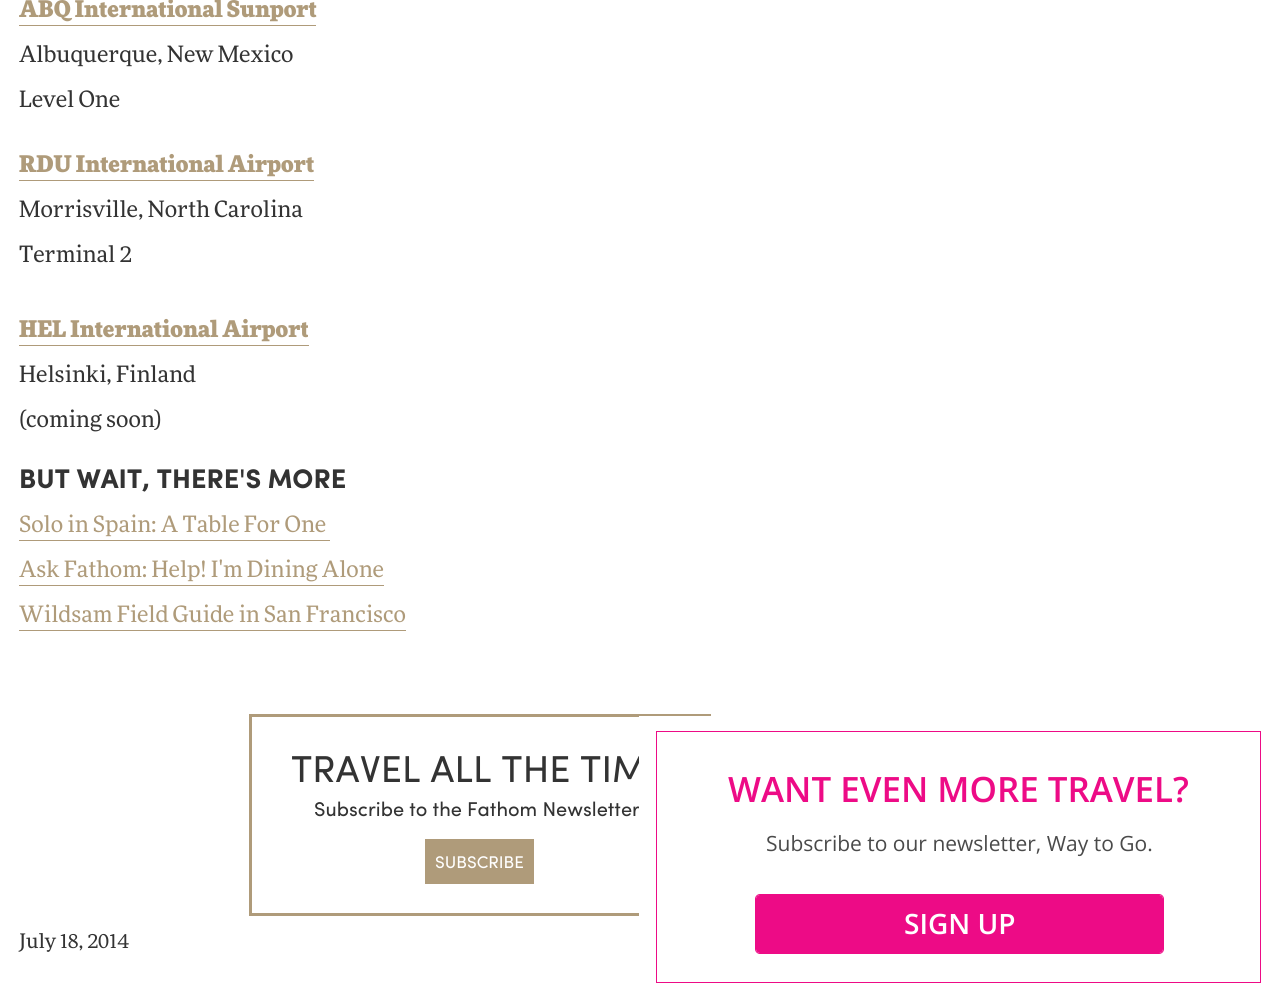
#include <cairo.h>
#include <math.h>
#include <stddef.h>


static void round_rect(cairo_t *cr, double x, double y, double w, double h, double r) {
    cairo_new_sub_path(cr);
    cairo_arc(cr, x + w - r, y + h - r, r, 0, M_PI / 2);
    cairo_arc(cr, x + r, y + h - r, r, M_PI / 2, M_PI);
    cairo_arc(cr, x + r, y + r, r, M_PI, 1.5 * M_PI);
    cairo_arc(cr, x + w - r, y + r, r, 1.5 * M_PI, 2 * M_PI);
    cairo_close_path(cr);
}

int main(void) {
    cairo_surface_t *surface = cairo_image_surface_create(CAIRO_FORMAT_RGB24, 1278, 999);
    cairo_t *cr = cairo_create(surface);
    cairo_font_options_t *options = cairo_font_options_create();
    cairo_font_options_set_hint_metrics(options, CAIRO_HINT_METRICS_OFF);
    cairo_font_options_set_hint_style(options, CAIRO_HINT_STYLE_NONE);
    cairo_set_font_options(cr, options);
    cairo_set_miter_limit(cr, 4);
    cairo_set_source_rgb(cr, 1, 1, 1);
    cairo_paint(cr);
    cairo_select_font_face(cr, "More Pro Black", CAIRO_FONT_SLANT_NORMAL, CAIRO_FONT_WEIGHT_NORMAL);
    cairo_set_font_size(cr, 22.5);
    cairo_set_source_rgb(cr, 0.686, 0.608, 0.478);
    cairo_move_to(cr, 19, 17);
    cairo_show_text(cr, "ABQ International Sunport");
    cairo_rectangle(cr, 19, 25, 297, 1);
    cairo_fill(cr);
    cairo_select_font_face(cr, "More Pro", CAIRO_FONT_SLANT_NORMAL, CAIRO_FONT_WEIGHT_NORMAL);
    cairo_set_source_rgb(cr, 0.2, 0.2, 0.2);
    cairo_move_to(cr, 19, 62);
    cairo_show_text(cr, "Albuquerque, New Mexico");
    cairo_move_to(cr, 19, 107);
    cairo_show_text(cr, "Level One");
    cairo_select_font_face(cr, "More Pro Black", CAIRO_FONT_SLANT_NORMAL, CAIRO_FONT_WEIGHT_NORMAL);
    cairo_set_source_rgb(cr, 0.686, 0.608, 0.478);
    cairo_move_to(cr, 19, 172);
    cairo_show_text(cr, "RDU International Airport");
    cairo_rectangle(cr, 19, 180, 295, 1);
    cairo_fill(cr);
    cairo_select_font_face(cr, "More Pro", CAIRO_FONT_SLANT_NORMAL, CAIRO_FONT_WEIGHT_NORMAL);
    cairo_set_source_rgb(cr, 0.2, 0.2, 0.2);
    cairo_move_to(cr, 19, 217);
    cairo_show_text(cr, "Morrisville, North Carolina");
    cairo_move_to(cr, 19, 262);
    cairo_show_text(cr, "Terminal 2");
    cairo_select_font_face(cr, "More Pro Black", CAIRO_FONT_SLANT_NORMAL, CAIRO_FONT_WEIGHT_NORMAL);
    cairo_set_source_rgb(cr, 0.686, 0.608, 0.478);
    cairo_move_to(cr, 19, 337);
    cairo_show_text(cr, "HEL International Airport");
    cairo_rectangle(cr, 19, 345, 290, 1);
    cairo_fill(cr);
    cairo_select_font_face(cr, "More Pro", CAIRO_FONT_SLANT_NORMAL, CAIRO_FONT_WEIGHT_NORMAL);
    cairo_set_source_rgb(cr, 0.2, 0.2, 0.2);
    cairo_move_to(cr, 19, 382);
    cairo_show_text(cr, "Helsinki, Finland");
    cairo_move_to(cr, 19, 427);
    cairo_show_text(cr, "(coming soon)");
    cairo_select_font_face(cr, "Sofia", CAIRO_FONT_SLANT_NORMAL, CAIRO_FONT_WEIGHT_BOLD);
    cairo_set_font_size(cr, 27);
    cairo_move_to(cr, 19, 488);
    cairo_show_text(cr, "BUT WAIT, THERE'S MORE");
    cairo_select_font_face(cr, "More Pro", CAIRO_FONT_SLANT_NORMAL, CAIRO_FONT_WEIGHT_NORMAL);
    cairo_set_font_size(cr, 22.5);
    cairo_set_source_rgb(cr, 0.686, 0.608, 0.478);
    cairo_move_to(cr, 19, 532);
    cairo_show_text(cr, "Solo in Spain: A Table For One");
    cairo_rectangle(cr, 19, 540, 311, 1);
    cairo_fill(cr);
    cairo_move_to(cr, 19, 577);
    cairo_show_text(cr, "Ask Fathom: Help! I'm Dining Alone");
    cairo_rectangle(cr, 19, 585, 365, 1);
    cairo_fill(cr);
    cairo_move_to(cr, 19, 622);
    cairo_show_text(cr, "Wildsam Field Guide in San Francisco");
    cairo_rectangle(cr, 19, 630, 387, 1);
    cairo_fill(cr);
    cairo_rectangle(cr, 250.5, 715.5, 459, 199);
    cairo_set_line_width(cr, 3);
    cairo_stroke(cr);
    cairo_select_font_face(cr, "Sofia", CAIRO_FONT_SLANT_NORMAL, CAIRO_FONT_WEIGHT_NORMAL);
    cairo_set_font_size(cr, 37.5);
    cairo_set_source_rgb(cr, 0.2, 0.2, 0.2);
    cairo_move_to(cr, 291, 782);
    cairo_show_text(cr, "TRAVEL ALL THE TIM");
    cairo_set_font_size(cr, 20);
    cairo_move_to(cr, 314, 816);
    cairo_show_text(cr, "Subscribe to the Fathom Newsletter");
    cairo_set_source_rgb(cr, 0.686, 0.608, 0.478);
    cairo_rectangle(cr, 425, 839, 109, 45);
    cairo_fill(cr);
    cairo_set_font_size(cr, 17);
    cairo_set_source_rgb(cr, 1, 1, 1);
    cairo_move_to(cr, 435, 868);
    cairo_show_text(cr, "SUBSCRIBE");
    cairo_select_font_face(cr, "More Pro", CAIRO_FONT_SLANT_NORMAL, CAIRO_FONT_WEIGHT_NORMAL);
    cairo_set_font_size(cr, 20);
    cairo_set_source_rgb(cr, 0.2, 0.2, 0.2);
    cairo_move_to(cr, 19, 948);
    cairo_show_text(cr, "July 18, 2014");
    cairo_set_source_rgb(cr, 1, 1, 1);
    cairo_rectangle(cr, 639, 716, 72, 200);
    cairo_fill(cr);
    cairo_rectangle(cr, 656.5, 731.5, 604, 251);
    cairo_set_source_rgb(cr, 0.929, 0.043, 0.525);
    cairo_set_line_width(cr, 1);
    cairo_stroke(cr);
    cairo_select_font_face(cr, "Open Sans SemiBold", CAIRO_FONT_SLANT_NORMAL, CAIRO_FONT_WEIGHT_NORMAL);
    cairo_set_font_size(cr, 34.9);
    cairo_move_to(cr, 728, 802);
    cairo_show_text(cr, "WANT EVEN MORE TRAVEL?");
    cairo_select_font_face(cr, "Open Sans", CAIRO_FONT_SLANT_NORMAL, CAIRO_FONT_WEIGHT_NORMAL);
    cairo_set_font_size(cr, 21);
    cairo_set_source_rgb(cr, 0.29, 0.29, 0.29);
    cairo_move_to(cr, 766, 851);
    cairo_show_text(cr, "Subscribe to our newsletter, Way to Go.");
    round_rect(cr, 755.5, 894.5, 408, 59, 4.5);
    cairo_set_source_rgb(cr, 0.929, 0.043, 0.525);
    cairo_stroke(cr);
    round_rect(cr, 756, 895, 407, 58, 4);
    cairo_fill(cr);
    cairo_select_font_face(cr, "Open Sans SemiBold", CAIRO_FONT_SLANT_NORMAL, CAIRO_FONT_WEIGHT_NORMAL);
    cairo_set_font_size(cr, 28);
    cairo_set_source_rgb(cr, 1, 1, 1);
    cairo_move_to(cr, 904, 934);
    cairo_show_text(cr, "SIGN UP");
    cairo_surface_write_to_png(surface, "page.png");
    cairo_font_options_destroy(options);
    cairo_destroy(cr);
    cairo_surface_destroy(surface);
    return 0;
}
